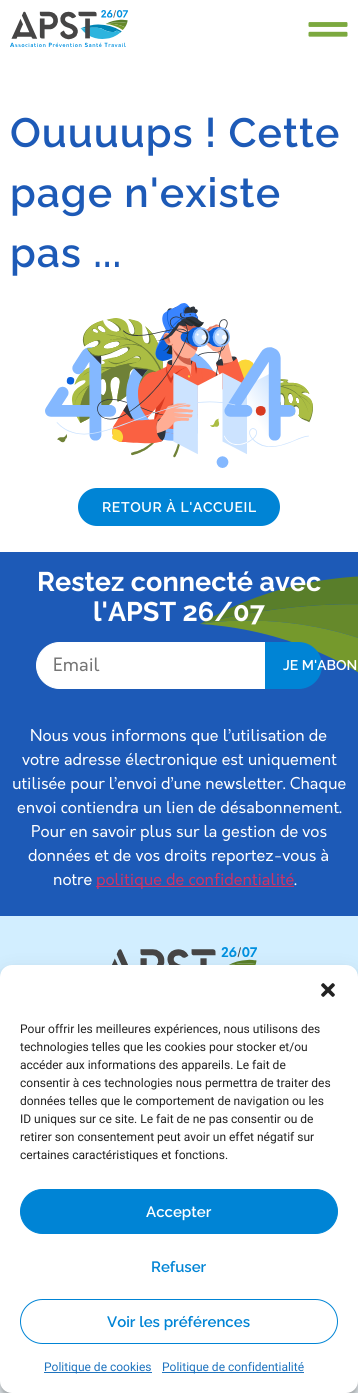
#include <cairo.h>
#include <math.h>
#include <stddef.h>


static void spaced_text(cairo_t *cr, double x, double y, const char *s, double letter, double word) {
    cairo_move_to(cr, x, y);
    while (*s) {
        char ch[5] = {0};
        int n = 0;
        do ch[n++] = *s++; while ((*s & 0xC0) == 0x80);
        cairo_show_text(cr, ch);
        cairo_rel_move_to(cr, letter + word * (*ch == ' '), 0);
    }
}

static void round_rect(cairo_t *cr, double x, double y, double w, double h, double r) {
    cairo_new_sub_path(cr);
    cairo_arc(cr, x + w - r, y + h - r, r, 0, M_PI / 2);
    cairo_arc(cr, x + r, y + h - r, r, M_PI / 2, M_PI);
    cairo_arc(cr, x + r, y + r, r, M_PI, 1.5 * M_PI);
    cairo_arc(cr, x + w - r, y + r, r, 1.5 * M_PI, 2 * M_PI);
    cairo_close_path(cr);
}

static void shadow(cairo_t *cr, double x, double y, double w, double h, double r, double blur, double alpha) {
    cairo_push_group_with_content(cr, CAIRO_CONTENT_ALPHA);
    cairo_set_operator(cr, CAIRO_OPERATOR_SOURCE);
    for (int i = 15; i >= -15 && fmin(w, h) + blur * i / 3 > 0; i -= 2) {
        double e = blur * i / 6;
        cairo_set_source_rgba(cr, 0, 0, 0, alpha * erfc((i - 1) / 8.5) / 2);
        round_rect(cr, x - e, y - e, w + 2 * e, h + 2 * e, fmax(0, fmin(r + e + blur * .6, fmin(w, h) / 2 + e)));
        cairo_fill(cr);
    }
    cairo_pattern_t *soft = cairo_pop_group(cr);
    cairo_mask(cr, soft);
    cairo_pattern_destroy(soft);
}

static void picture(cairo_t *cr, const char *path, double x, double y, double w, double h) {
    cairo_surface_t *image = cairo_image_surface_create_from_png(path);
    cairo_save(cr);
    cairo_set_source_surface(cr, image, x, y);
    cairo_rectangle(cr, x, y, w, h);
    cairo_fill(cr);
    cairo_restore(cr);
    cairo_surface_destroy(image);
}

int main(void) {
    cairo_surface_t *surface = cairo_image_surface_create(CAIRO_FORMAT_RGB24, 358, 1393);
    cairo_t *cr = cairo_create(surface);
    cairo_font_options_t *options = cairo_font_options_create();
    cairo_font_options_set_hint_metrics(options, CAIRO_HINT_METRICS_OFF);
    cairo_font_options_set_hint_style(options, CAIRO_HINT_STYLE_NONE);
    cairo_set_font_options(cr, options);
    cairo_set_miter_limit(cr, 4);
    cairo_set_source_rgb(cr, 1, 1, 1);
    cairo_paint(cr);
    picture(cr, "img1.png", 10, 10, 118, 37);
    picture(cr, "img2.png", 308, 22, 40, 15);
    cairo_select_font_face(cr, "Raleway SemiBold", CAIRO_FONT_SLANT_NORMAL, CAIRO_FONT_WEIGHT_NORMAL);
    cairo_set_font_size(cr, 41);
    cairo_set_source_rgb(cr, 0.114, 0.353, 0.718);
    spaced_text(cr, 10, 147, "Ouuuups ! Cette", 1, 0);
    spaced_text(cr, 10, 207, "page n'existe", 1, 0);
    spaced_text(cr, 10, 267, "pas ...", 1, 0);
    picture(cr, "img3.png", 45, 303, 268, 165);
    cairo_set_source_rgb(cr, 0, 0.518, 0.835);
    round_rect(cr, 78, 488, 202, 38, 19);
    cairo_fill(cr);
    cairo_set_font_size(cr, 14);
    cairo_set_source_rgb(cr, 1, 1, 1);
    spaced_text(cr, 102, 512, "RETOUR À L'ACCUEIL", 0.6, 0);
    cairo_set_source_rgb(cr, 0.114, 0.353, 0.718);
    cairo_rectangle(cr, 0, 552, 358, 364);
    cairo_fill(cr);
    cairo_set_source_rgb(cr, 0.4, 0.537, 0.169);
    cairo_new_path(cr);
    cairo_move_to(cr, 200, 624);
    cairo_curve_to(cr, 200, 624, 319, 590, 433, 611);
    cairo_curve_to(cr, 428, 628, 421, 645, 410, 660);
    cairo_curve_to(cr, 305, 604, 200, 624, 200, 624);
    cairo_fill(cr);
    cairo_set_source_rgb(cr, 0.349, 0.494, 0.165);
    cairo_new_path(cr);
    cairo_move_to(cr, 200, 624);
    cairo_curve_to(cr, 271, 582, 357, 567, 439, 581);
    cairo_curve_to(cr, 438, 591, 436, 601, 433, 611);
    cairo_curve_to(cr, 319, 590, 200, 624, 200, 624);
    cairo_fill(cr);
    cairo_set_source_rgb(cr, 0.459, 0.6, 0.173);
    cairo_new_path(cr);
    cairo_move_to(cr, 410, 660);
    cairo_curve_to(cr, 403, 671, 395, 681, 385, 690);
    cairo_curve_to(cr, 332, 651, 266, 628, 200, 624);
    cairo_curve_to(cr, 200, 624, 305, 604, 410, 660);
    cairo_fill(cr);
    cairo_select_font_face(cr, "Raleway", CAIRO_FONT_SLANT_NORMAL, CAIRO_FONT_WEIGHT_BOLD);
    cairo_set_font_size(cr, 27);
    cairo_set_source_rgb(cr, 1, 1, 1);
    cairo_move_to(cr, 37, 591);
    cairo_show_text(cr, "Restez connecté avec");
    cairo_move_to(cr, 93, 621);
    cairo_show_text(cr, "l'APST 26/07");
    cairo_new_path(cr);
    cairo_move_to(cr, 59.5, 642.5);
    cairo_line_to(cr, 264.5, 642.5);
    cairo_line_to(cr, 264.5, 688.5);
    cairo_line_to(cr, 59.5, 688.5);
    cairo_curve_to(cr, 47, 688.5, 36.5, 678, 36.5, 665.5);
    cairo_curve_to(cr, 36.5, 653, 47, 642.5, 59.5, 642.5);
    cairo_close_path(cr);
    cairo_fill_preserve(cr);
    cairo_set_line_width(cr, 1);
    cairo_stroke(cr);
    cairo_select_font_face(cr, "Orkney", CAIRO_FONT_SLANT_NORMAL, CAIRO_FONT_WEIGHT_NORMAL);
    cairo_set_font_size(cr, 18);
    cairo_set_source_rgb(cr, 0.459, 0.459, 0.459);
    cairo_move_to(cr, 53, 671);
    cairo_show_text(cr, "Email");
    cairo_set_source_rgb(cr, 0, 0.518, 0.835);
    cairo_new_path(cr);
    cairo_move_to(cr, 266, 643);
    cairo_line_to(cr, 298.5, 643);
    cairo_curve_to(cr, 311, 643, 321, 653, 321, 665.5);
    cairo_curve_to(cr, 321, 678, 311, 688, 298.5, 688);
    cairo_line_to(cr, 266, 688);
    cairo_close_path(cr);
    cairo_fill_preserve(cr);
    cairo_set_line_width(cr, 2);
    cairo_stroke(cr);
    cairo_select_font_face(cr, "Raleway SemiBold", CAIRO_FONT_SLANT_NORMAL, CAIRO_FONT_WEIGHT_NORMAL);
    cairo_set_font_size(cr, 14);
    cairo_set_source_rgb(cr, 1, 1, 1);
    cairo_move_to(cr, 283, 670);
    cairo_show_text(cr, "JE M'ABON");
    cairo_select_font_face(cr, "Orkney", CAIRO_FONT_SLANT_NORMAL, CAIRO_FONT_WEIGHT_NORMAL);
    cairo_set_font_size(cr, 16);
    cairo_move_to(cr, 30, 741);
    cairo_show_text(cr, "Nous vous informons que l’utilisation de");
    cairo_move_to(cr, 22, 765);
    cairo_show_text(cr, "votre adresse électronique est uniquement");
    cairo_move_to(cr, 12, 789);
    cairo_show_text(cr, "utilisée pour l’envoi d’une newsletter. Chaque");
    cairo_move_to(cr, 17, 813);
    cairo_show_text(cr, "envoi contiendra un lien de désabonnement.");
    cairo_move_to(cr, 31, 837);
    cairo_show_text(cr, "Pour en savoir plus sur la gestion de vos");
    cairo_move_to(cr, 28, 861);
    cairo_show_text(cr, "données et de vos droits reportez-vous à");
    cairo_move_to(cr, 53, 885);
    cairo_show_text(cr, "notre");
    cairo_set_source_rgb(cr, 0.8, 0.2, 0.4);
    cairo_rectangle(cr, 96, 886, 198, 1);
    cairo_fill(cr);
    cairo_move_to(cr, 96, 885);
    cairo_show_text(cr, "politique de confidentialité");
    cairo_set_source_rgb(cr, 1, 1, 1);
    cairo_move_to(cr, 294, 885);
    cairo_show_text(cr, ".");
    cairo_set_source_rgb(cr, 0.824, 0.933, 1);
    cairo_rectangle(cr, 0, 916, 358, 61);
    cairo_fill(cr);
    picture(cr, "img4.png", 112, 947, 145, 18);
    cairo_set_source_rgb(cr, 0.953, 0.976, 0.992);
    cairo_rectangle(cr, 0, 1381, 358, 12);
    cairo_fill(cr);
    cairo_set_source_rgb(cr, 0, 0, 0);
    shadow(cr, 0, 971, 358, 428, 12, 3, 0.23);
    shadow(cr, 0, 975, 358, 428, 12, 10, 0.19);
    cairo_set_source_rgb(cr, 1, 1, 1);
    round_rect(cr, 0, 965, 358, 428, 12);
    cairo_fill(cr);
    picture(cr, "img5.png", 321, 983, 14, 14);
    cairo_select_font_face(cr, "Roboto", CAIRO_FONT_SLANT_NORMAL, CAIRO_FONT_WEIGHT_NORMAL);
    cairo_set_font_size(cr, 12);
    cairo_set_source_rgb(cr, 0.133, 0.133, 0.133);
    cairo_move_to(cr, 20, 1033);
    cairo_show_text(cr, "Pour offrir les meilleures expériences, nous utilisons des");
    cairo_move_to(cr, 20, 1051);
    cairo_show_text(cr, "technologies telles que les cookies pour stocker et/ou");
    cairo_move_to(cr, 20, 1069);
    cairo_show_text(cr, "accéder aux informations des appareils. Le fait de");
    cairo_move_to(cr, 20, 1087);
    cairo_show_text(cr, "consentir à ces technologies nous permettra de traiter des");
    cairo_move_to(cr, 20, 1105);
    cairo_show_text(cr, "données telles que le comportement de navigation ou les");
    cairo_move_to(cr, 20, 1123);
    cairo_show_text(cr, "ID uniques sur ce site. Le fait de ne pas consentir ou de");
    cairo_move_to(cr, 20, 1141);
    cairo_show_text(cr, "retirer son consentement peut avoir un effet négatif sur");
    cairo_move_to(cr, 20, 1159);
    cairo_show_text(cr, "certaines caractéristiques et fonctions.");
    cairo_set_source_rgb(cr, 0, 0.518, 0.835);
    round_rect(cr, 20.5, 1189.5, 317, 44, 22);
    cairo_fill_preserve(cr);
    cairo_set_line_width(cr, 1);
    cairo_stroke(cr);
    cairo_select_font_face(cr, "Raleway SemiBold", CAIRO_FONT_SLANT_NORMAL, CAIRO_FONT_WEIGHT_NORMAL);
    cairo_set_font_size(cr, 15);
    cairo_set_source_rgb(cr, 1, 1, 1);
    cairo_move_to(cr, 146, 1217);
    cairo_show_text(cr, "Accepter");
    cairo_set_source_rgb(cr, 0, 0.518, 0.835);
    cairo_move_to(cr, 151, 1272);
    cairo_show_text(cr, "Refuser");
    round_rect(cr, 20.5, 1299.5, 317, 44, 22);
    cairo_stroke(cr);
    cairo_move_to(cr, 107, 1327);
    cairo_show_text(cr, "Voir les préférences");
    cairo_set_source_rgb(cr, 0.118, 0.451, 0.745);
    cairo_rectangle(cr, 44, 1372, 108, 1);
    cairo_fill(cr);
    cairo_select_font_face(cr, "Roboto", CAIRO_FONT_SLANT_NORMAL, CAIRO_FONT_WEIGHT_NORMAL);
    cairo_set_font_size(cr, 12);
    cairo_move_to(cr, 44, 1371);
    cairo_show_text(cr, "Politique de cookies");
    cairo_rectangle(cr, 162, 1372, 142, 1);
    cairo_fill(cr);
    cairo_move_to(cr, 162, 1371);
    cairo_show_text(cr, "Politique de confidentialité");
    cairo_surface_write_to_png(surface, "page.png");
    cairo_font_options_destroy(options);
    cairo_destroy(cr);
    cairo_surface_destroy(surface);
    return 0;
}
